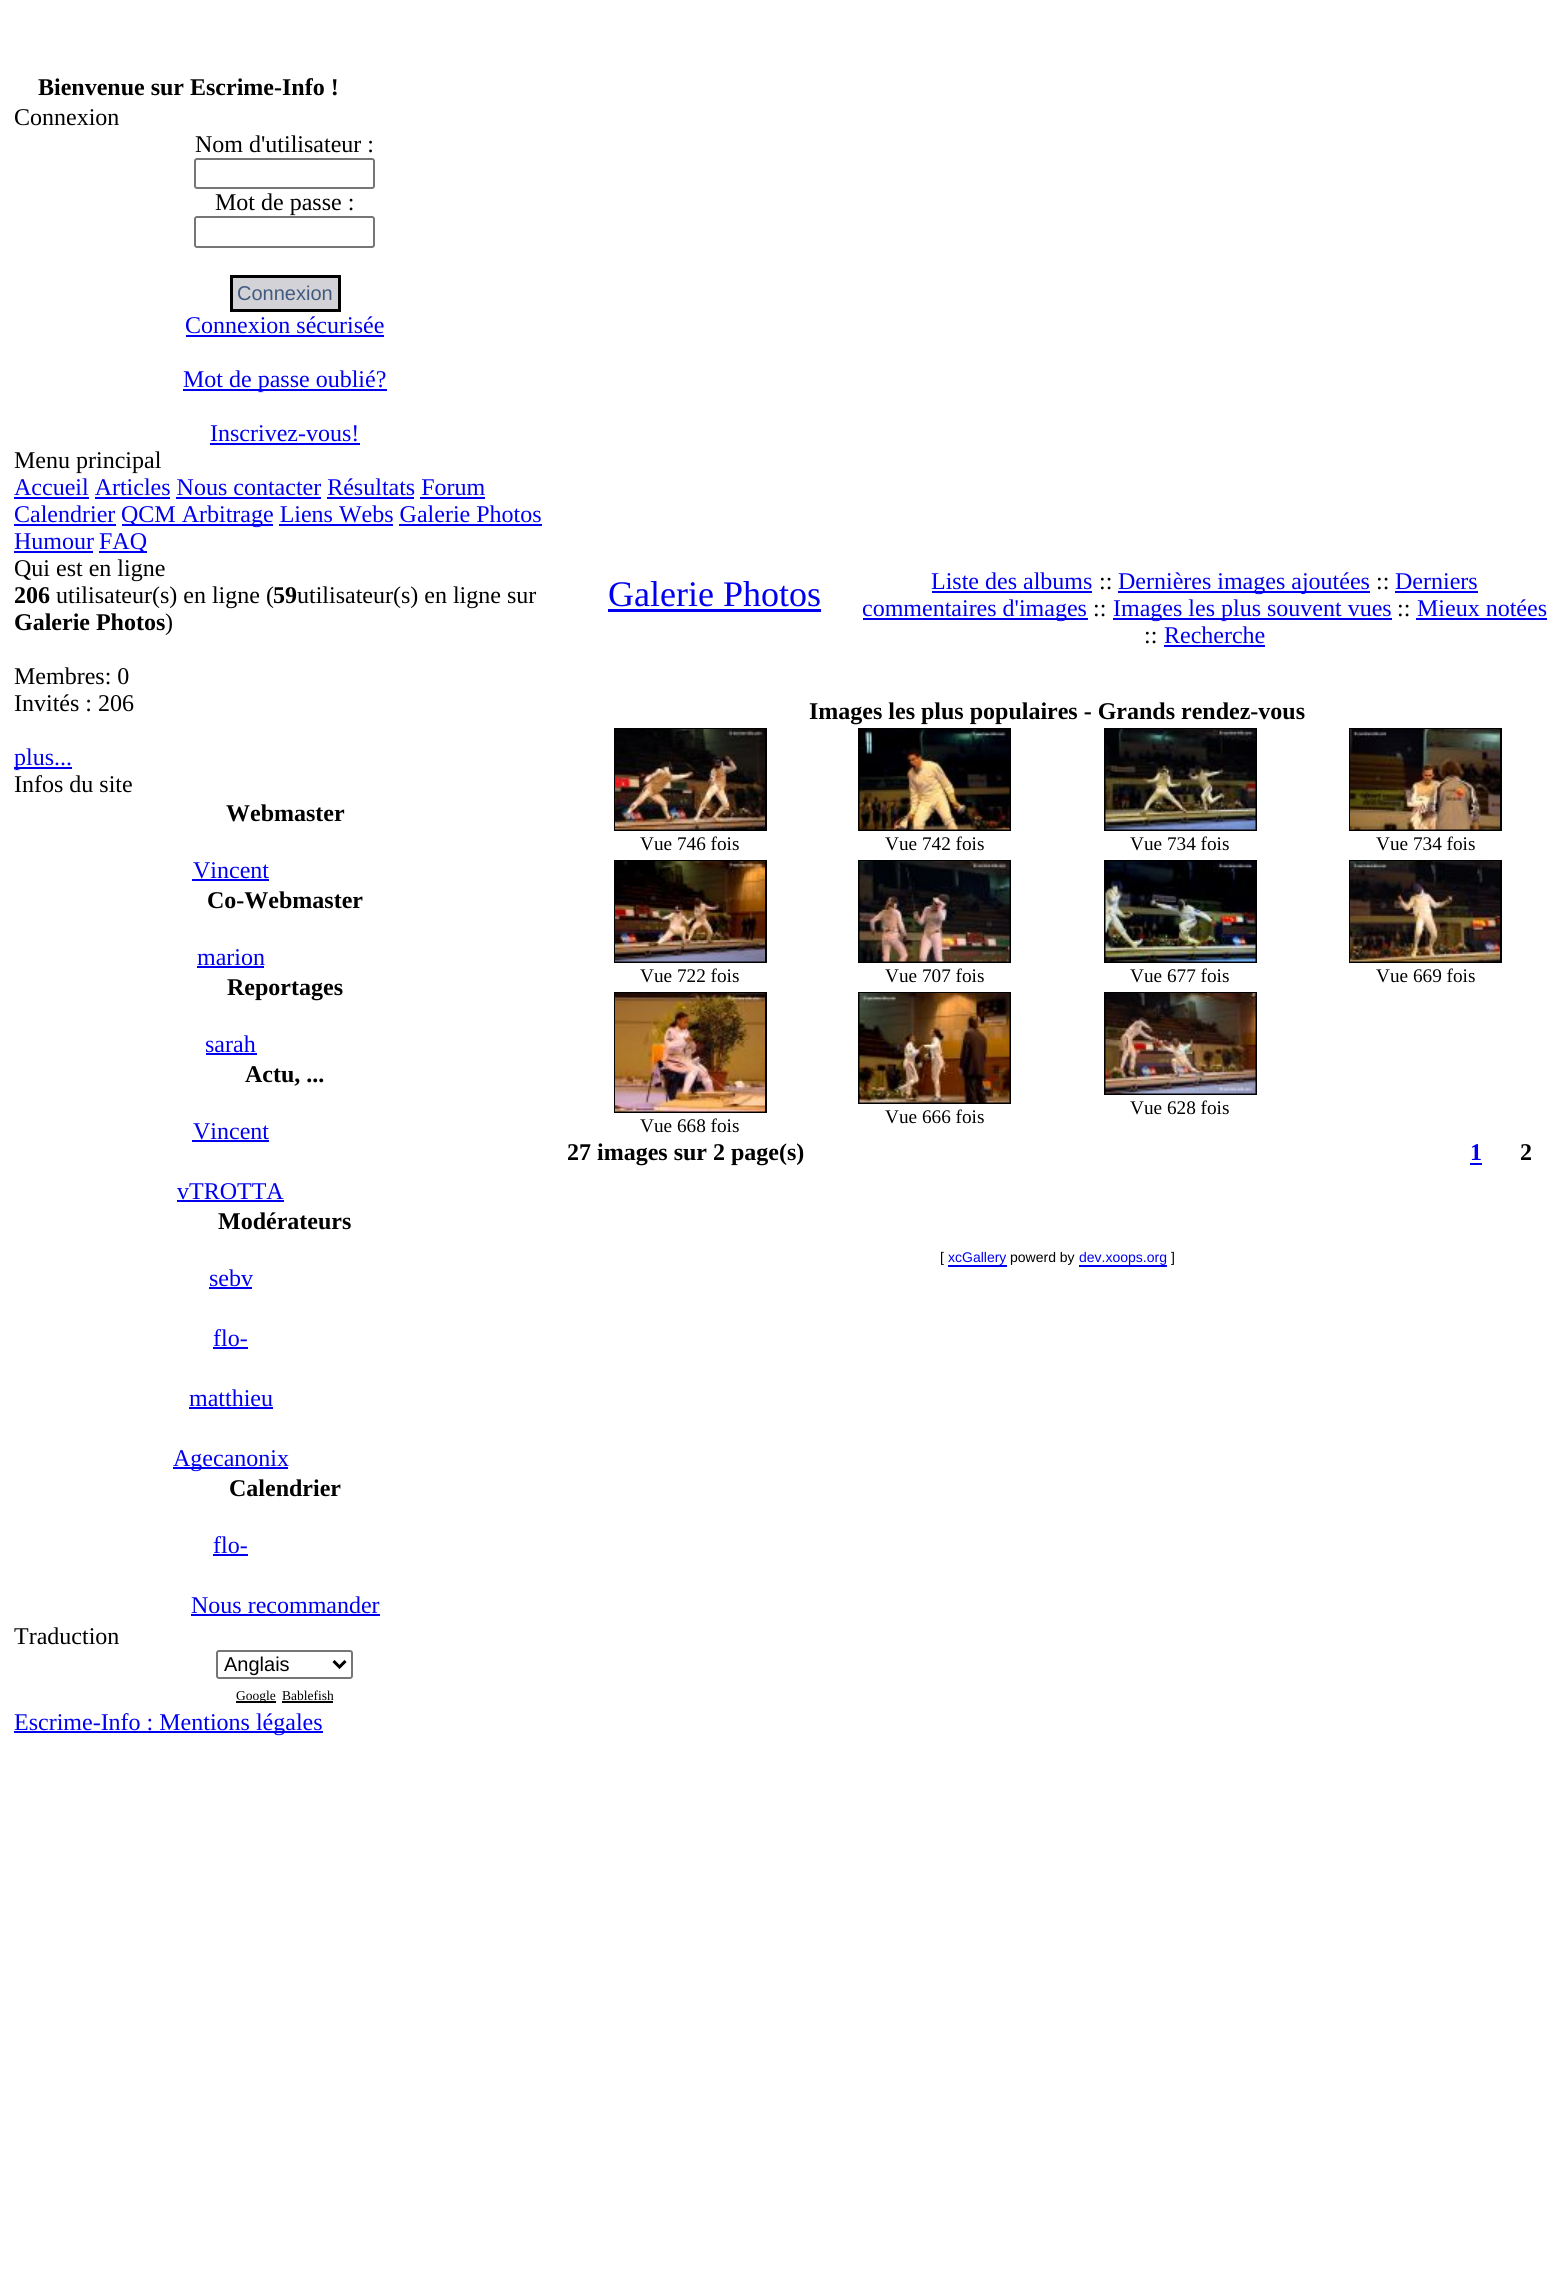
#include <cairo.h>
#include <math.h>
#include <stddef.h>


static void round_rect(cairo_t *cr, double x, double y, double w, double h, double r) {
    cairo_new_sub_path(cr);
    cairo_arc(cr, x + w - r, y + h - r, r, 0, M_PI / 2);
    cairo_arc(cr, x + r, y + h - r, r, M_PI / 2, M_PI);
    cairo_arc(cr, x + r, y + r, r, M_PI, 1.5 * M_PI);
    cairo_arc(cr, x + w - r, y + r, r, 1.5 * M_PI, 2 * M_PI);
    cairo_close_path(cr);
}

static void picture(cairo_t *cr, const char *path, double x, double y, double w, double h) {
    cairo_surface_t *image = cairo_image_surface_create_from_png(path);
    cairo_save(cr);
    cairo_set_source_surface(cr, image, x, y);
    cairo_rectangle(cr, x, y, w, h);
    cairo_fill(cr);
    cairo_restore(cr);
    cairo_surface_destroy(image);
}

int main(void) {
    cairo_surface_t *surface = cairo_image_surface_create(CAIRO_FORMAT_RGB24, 1568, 2286);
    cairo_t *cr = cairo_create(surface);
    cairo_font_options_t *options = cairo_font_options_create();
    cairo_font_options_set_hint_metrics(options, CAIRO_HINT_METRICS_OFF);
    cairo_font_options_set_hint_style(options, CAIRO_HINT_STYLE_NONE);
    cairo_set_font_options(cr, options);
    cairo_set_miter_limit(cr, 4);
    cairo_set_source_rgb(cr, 1, 1, 1);
    cairo_paint(cr);
    cairo_select_font_face(cr, "Liberation Serif", CAIRO_FONT_SLANT_NORMAL, CAIRO_FONT_WEIGHT_BOLD);
    cairo_set_font_size(cr, 24);
    cairo_set_source_rgb(cr, 0, 0, 0);
    cairo_move_to(cr, 38, 95);
    cairo_show_text(cr, "Bienvenue sur Escrime-Info !");
    cairo_select_font_face(cr, "Liberation Serif", CAIRO_FONT_SLANT_NORMAL, CAIRO_FONT_WEIGHT_NORMAL);
    cairo_move_to(cr, 14, 125);
    cairo_show_text(cr, "Connexion");
    cairo_move_to(cr, 195, 152);
    cairo_show_text(cr, "Nom d'utilisateur :");
    round_rect(cr, 195, 159, 179, 29, 2);
    cairo_set_source_rgb(cr, 0.463, 0.463, 0.463);
    cairo_stroke(cr);
    cairo_set_source_rgb(cr, 0, 0, 0);
    cairo_move_to(cr, 215, 210);
    cairo_show_text(cr, "Mot de passe :");
    round_rect(cr, 195, 217, 179, 30, 2);
    cairo_set_source_rgb(cr, 0.463, 0.463, 0.463);
    cairo_stroke(cr);
    cairo_set_source_rgb(cr, 0.827, 0.824, 0.839);
    cairo_rectangle(cr, 231.5, 276.5, 108, 34);
    cairo_fill_preserve(cr);
    cairo_set_source_rgb(cr, 0, 0, 0);
    cairo_set_line_width(cr, 3);
    cairo_stroke(cr);
    cairo_select_font_face(cr, "Liberation Sans", CAIRO_FONT_SLANT_NORMAL, CAIRO_FONT_WEIGHT_NORMAL);
    cairo_set_font_size(cr, 20);
    cairo_set_source_rgb(cr, 0.251, 0.353, 0.502);
    cairo_move_to(cr, 237, 300);
    cairo_show_text(cr, "Connexion");
    cairo_select_font_face(cr, "Liberation Serif", CAIRO_FONT_SLANT_NORMAL, CAIRO_FONT_WEIGHT_NORMAL);
    cairo_set_font_size(cr, 24);
    cairo_set_source_rgb(cr, 0, 0, 0.933);
    cairo_move_to(cr, 185, 333);
    cairo_show_text(cr, "Connexion sécurisée");
    cairo_rectangle(cr, 186, 335, 198, 2);
    cairo_fill(cr);
    cairo_rectangle(cr, 183, 389, 204, 2);
    cairo_fill(cr);
    cairo_move_to(cr, 183, 387);
    cairo_show_text(cr, "Mot de passe oublié?");
    cairo_move_to(cr, 210, 441);
    cairo_show_text(cr, "Inscrivez-vous!");
    cairo_rectangle(cr, 210, 443, 150, 2);
    cairo_fill(cr);
    cairo_set_source_rgb(cr, 0, 0, 0);
    cairo_move_to(cr, 14, 468);
    cairo_show_text(cr, "Menu principal");
    cairo_set_source_rgb(cr, 0, 0, 0.933);
    cairo_move_to(cr, 14, 495);
    cairo_show_text(cr, "Accueil Articles Nous contacter Résultats Forum");
    cairo_rectangle(cr, 14, 497, 75, 2);
    cairo_fill(cr);
    cairo_rectangle(cr, 95, 497, 75, 2);
    cairo_fill(cr);
    cairo_rectangle(cr, 176, 497, 145, 2);
    cairo_fill(cr);
    cairo_rectangle(cr, 327, 497, 87, 2);
    cairo_fill(cr);
    cairo_rectangle(cr, 420, 497, 65, 2);
    cairo_fill(cr);
    cairo_move_to(cr, 14, 522);
    cairo_show_text(cr, "Calendrier");
    cairo_rectangle(cr, 14, 524, 102, 2);
    cairo_fill(cr);
    cairo_rectangle(cr, 122, 524, 151, 2);
    cairo_fill(cr);
    cairo_move_to(cr, 121, 522);
    cairo_show_text(cr, "QCM Arbitrage Liens Webs Galerie Photos");
    cairo_rectangle(cr, 279, 524, 114, 2);
    cairo_fill(cr);
    cairo_rectangle(cr, 399, 524, 143, 2);
    cairo_fill(cr);
    cairo_move_to(cr, 14, 549);
    cairo_show_text(cr, "Humour");
    cairo_rectangle(cr, 14, 551, 79, 2);
    cairo_fill(cr);
    cairo_rectangle(cr, 99, 551, 48, 2);
    cairo_fill(cr);
    cairo_move_to(cr, 99, 549);
    cairo_show_text(cr, "FAQ");
    cairo_set_source_rgb(cr, 0, 0, 0);
    cairo_move_to(cr, 14, 576);
    cairo_show_text(cr, "Qui est en ligne");
    cairo_select_font_face(cr, "Liberation Serif", CAIRO_FONT_SLANT_NORMAL, CAIRO_FONT_WEIGHT_BOLD);
    cairo_move_to(cr, 14, 603);
    cairo_show_text(cr, "206");
    cairo_select_font_face(cr, "Liberation Serif", CAIRO_FONT_SLANT_NORMAL, CAIRO_FONT_WEIGHT_NORMAL);
    cairo_move_to(cr, 56, 603);
    cairo_show_text(cr, "utilisateur(s) en ligne (");
    cairo_select_font_face(cr, "Liberation Serif", CAIRO_FONT_SLANT_NORMAL, CAIRO_FONT_WEIGHT_BOLD);
    cairo_move_to(cr, 273, 603);
    cairo_show_text(cr, "59");
    cairo_select_font_face(cr, "Liberation Serif", CAIRO_FONT_SLANT_NORMAL, CAIRO_FONT_WEIGHT_NORMAL);
    cairo_move_to(cr, 297, 603);
    cairo_show_text(cr, "utilisateur(s) en ligne sur");
    cairo_select_font_face(cr, "Liberation Serif", CAIRO_FONT_SLANT_NORMAL, CAIRO_FONT_WEIGHT_BOLD);
    cairo_move_to(cr, 14, 630);
    cairo_show_text(cr, "Galerie Photos");
    cairo_select_font_face(cr, "Liberation Serif", CAIRO_FONT_SLANT_NORMAL, CAIRO_FONT_WEIGHT_NORMAL);
    cairo_move_to(cr, 165, 630);
    cairo_show_text(cr, ")");
    cairo_move_to(cr, 14, 684);
    cairo_show_text(cr, "Membres: 0");
    cairo_move_to(cr, 14, 711);
    cairo_show_text(cr, "Invités : 206");
    cairo_set_source_rgb(cr, 0, 0, 0.933);
    cairo_rectangle(cr, 14, 767, 58, 2);
    cairo_fill(cr);
    cairo_move_to(cr, 14, 765);
    cairo_show_text(cr, "plus...");
    cairo_set_source_rgb(cr, 0, 0, 0);
    cairo_move_to(cr, 14, 792);
    cairo_show_text(cr, "Infos du site");
    cairo_select_font_face(cr, "Liberation Serif", CAIRO_FONT_SLANT_NORMAL, CAIRO_FONT_WEIGHT_BOLD);
    cairo_move_to(cr, 226, 821);
    cairo_show_text(cr, "Webmaster");
    cairo_select_font_face(cr, "Liberation Serif", CAIRO_FONT_SLANT_NORMAL, CAIRO_FONT_WEIGHT_NORMAL);
    cairo_set_source_rgb(cr, 0, 0, 0.933);
    cairo_move_to(cr, 193, 878);
    cairo_show_text(cr, "Vincent");
    cairo_rectangle(cr, 192, 879, 77, 2);
    cairo_fill(cr);
    cairo_select_font_face(cr, "Liberation Serif", CAIRO_FONT_SLANT_NORMAL, CAIRO_FONT_WEIGHT_BOLD);
    cairo_set_source_rgb(cr, 0, 0, 0);
    cairo_move_to(cr, 207, 908);
    cairo_show_text(cr, "Co-Webmaster");
    cairo_select_font_face(cr, "Liberation Serif", CAIRO_FONT_SLANT_NORMAL, CAIRO_FONT_WEIGHT_NORMAL);
    cairo_set_source_rgb(cr, 0, 0, 0.933);
    cairo_move_to(cr, 197, 965);
    cairo_show_text(cr, "marion");
    cairo_rectangle(cr, 197, 966, 67, 2);
    cairo_fill(cr);
    cairo_select_font_face(cr, "Liberation Serif", CAIRO_FONT_SLANT_NORMAL, CAIRO_FONT_WEIGHT_BOLD);
    cairo_set_source_rgb(cr, 0, 0, 0);
    cairo_move_to(cr, 227, 995);
    cairo_show_text(cr, "Reportages");
    cairo_select_font_face(cr, "Liberation Serif", CAIRO_FONT_SLANT_NORMAL, CAIRO_FONT_WEIGHT_NORMAL);
    cairo_set_source_rgb(cr, 0, 0, 0.933);
    cairo_move_to(cr, 205, 1052);
    cairo_show_text(cr, "sarah");
    cairo_rectangle(cr, 206, 1053, 51, 2);
    cairo_fill(cr);
    cairo_select_font_face(cr, "Liberation Serif", CAIRO_FONT_SLANT_NORMAL, CAIRO_FONT_WEIGHT_BOLD);
    cairo_set_source_rgb(cr, 0, 0, 0);
    cairo_move_to(cr, 245, 1082);
    cairo_show_text(cr, "Actu, ...");
    cairo_select_font_face(cr, "Liberation Serif", CAIRO_FONT_SLANT_NORMAL, CAIRO_FONT_WEIGHT_NORMAL);
    cairo_set_source_rgb(cr, 0, 0, 0.933);
    cairo_move_to(cr, 193, 1139);
    cairo_show_text(cr, "Vincent");
    cairo_rectangle(cr, 192, 1140, 77, 2);
    cairo_fill(cr);
    cairo_move_to(cr, 177, 1199);
    cairo_show_text(cr, "vTROTTA");
    cairo_rectangle(cr, 177, 1200, 107, 2);
    cairo_fill(cr);
    cairo_select_font_face(cr, "Liberation Serif", CAIRO_FONT_SLANT_NORMAL, CAIRO_FONT_WEIGHT_BOLD);
    cairo_set_source_rgb(cr, 0, 0, 0);
    cairo_move_to(cr, 218, 1229);
    cairo_show_text(cr, "Modérateurs");
    cairo_select_font_face(cr, "Liberation Serif", CAIRO_FONT_SLANT_NORMAL, CAIRO_FONT_WEIGHT_NORMAL);
    cairo_set_source_rgb(cr, 0, 0, 0.933);
    cairo_move_to(cr, 209, 1286);
    cairo_show_text(cr, "sebv");
    cairo_rectangle(cr, 209, 1287, 43, 2);
    cairo_fill(cr);
    cairo_move_to(cr, 213, 1346);
    cairo_show_text(cr, "flo-");
    cairo_rectangle(cr, 213, 1347, 35, 2);
    cairo_fill(cr);
    cairo_move_to(cr, 189, 1406);
    cairo_show_text(cr, "matthieu");
    cairo_rectangle(cr, 189, 1407, 84, 2);
    cairo_fill(cr);
    cairo_rectangle(cr, 173, 1467, 115, 2);
    cairo_fill(cr);
    cairo_move_to(cr, 173, 1466);
    cairo_show_text(cr, "Agecanonix");
    cairo_select_font_face(cr, "Liberation Serif", CAIRO_FONT_SLANT_NORMAL, CAIRO_FONT_WEIGHT_BOLD);
    cairo_set_source_rgb(cr, 0, 0, 0);
    cairo_move_to(cr, 229, 1496);
    cairo_show_text(cr, "Calendrier");
    cairo_select_font_face(cr, "Liberation Serif", CAIRO_FONT_SLANT_NORMAL, CAIRO_FONT_WEIGHT_NORMAL);
    cairo_set_source_rgb(cr, 0, 0, 0.933);
    cairo_move_to(cr, 213, 1553);
    cairo_show_text(cr, "flo-");
    cairo_rectangle(cr, 213, 1554, 35, 2);
    cairo_fill(cr);
    cairo_move_to(cr, 191, 1613);
    cairo_show_text(cr, "Nous recommander");
    cairo_rectangle(cr, 191, 1614, 189, 2);
    cairo_fill(cr);
    cairo_set_source_rgb(cr, 0, 0, 0);
    cairo_move_to(cr, 14, 1644);
    cairo_show_text(cr, "Traduction");
    round_rect(cr, 217, 1651, 135, 27, 2);
    cairo_set_source_rgb(cr, 0.463, 0.463, 0.463);
    cairo_set_line_width(cr, 2);
    cairo_stroke(cr);
    cairo_new_path(cr);
    cairo_move_to(cr, 333.5, 1661);
    cairo_line_to(cr, 339.5, 1667);
    cairo_line_to(cr, 345.5, 1661);
    cairo_set_source_rgb(cr, 0, 0, 0);
    cairo_set_line_width(cr, 3);
    cairo_stroke(cr);
    cairo_select_font_face(cr, "Liberation Sans", CAIRO_FONT_SLANT_NORMAL, CAIRO_FONT_WEIGHT_NORMAL);
    cairo_set_font_size(cr, 20);
    cairo_move_to(cr, 224, 1671);
    cairo_show_text(cr, "Anglais");
    cairo_rectangle(cr, 236, 1701, 40, 2);
    cairo_fill(cr);
    cairo_select_font_face(cr, "Liberation Serif", CAIRO_FONT_SLANT_NORMAL, CAIRO_FONT_WEIGHT_NORMAL);
    cairo_set_font_size(cr, 13.5);
    cairo_move_to(cr, 236, 1700);
    cairo_show_text(cr, "Google");
    cairo_move_to(cr, 282, 1700);
    cairo_show_text(cr, "Bablefish");
    cairo_rectangle(cr, 282, 1701, 51, 2);
    cairo_fill(cr);
    cairo_set_font_size(cr, 36);
    cairo_set_source_rgb(cr, 0, 0, 0.933);
    cairo_move_to(cr, 608, 606);
    cairo_show_text(cr, "Galerie Photos");
    cairo_rectangle(cr, 608, 609, 213, 3);
    cairo_fill(cr);
    cairo_set_font_size(cr, 24);
    cairo_move_to(cr, 931, 589);
    cairo_show_text(cr, "Liste des albums");
    cairo_rectangle(cr, 932, 591, 160, 2);
    cairo_fill(cr);
    cairo_set_source_rgb(cr, 0, 0, 0);
    cairo_move_to(cr, 1099, 589);
    cairo_show_text(cr, "::");
    cairo_set_source_rgb(cr, 0, 0, 0.933);
    cairo_rectangle(cr, 1118, 591, 252, 2);
    cairo_fill(cr);
    cairo_move_to(cr, 1118, 589);
    cairo_show_text(cr, "Dernières images ajoutées");
    cairo_set_source_rgb(cr, 0, 0, 0);
    cairo_move_to(cr, 1376, 589);
    cairo_show_text(cr, "::");
    cairo_set_source_rgb(cr, 0, 0, 0.933);
    cairo_move_to(cr, 1395, 589);
    cairo_show_text(cr, "Derniers");
    cairo_rectangle(cr, 1395, 591, 83, 2);
    cairo_fill(cr);
    cairo_rectangle(cr, 863, 618, 225, 2);
    cairo_fill(cr);
    cairo_move_to(cr, 862, 616);
    cairo_show_text(cr, "commentaires d'images");
    cairo_set_source_rgb(cr, 0, 0, 0);
    cairo_move_to(cr, 1093, 616);
    cairo_show_text(cr, "::");
    cairo_set_source_rgb(cr, 0, 0, 0.933);
    cairo_rectangle(cr, 1113, 618, 279, 2);
    cairo_fill(cr);
    cairo_move_to(cr, 1113, 616);
    cairo_show_text(cr, "Images les plus souvent vues");
    cairo_set_source_rgb(cr, 0, 0, 0);
    cairo_move_to(cr, 1397, 616);
    cairo_show_text(cr, "::");
    cairo_set_source_rgb(cr, 0, 0, 0.933);
    cairo_move_to(cr, 1417, 616);
    cairo_show_text(cr, "Mieux notées");
    cairo_rectangle(cr, 1416, 618, 131, 2);
    cairo_fill(cr);
    cairo_set_source_rgb(cr, 0, 0, 0);
    cairo_move_to(cr, 1144, 643);
    cairo_show_text(cr, "::");
    cairo_set_source_rgb(cr, 0, 0, 0.933);
    cairo_move_to(cr, 1164, 643);
    cairo_show_text(cr, "Recherche");
    cairo_rectangle(cr, 1164, 645, 101, 2);
    cairo_fill(cr);
    cairo_select_font_face(cr, "Liberation Serif", CAIRO_FONT_SLANT_NORMAL, CAIRO_FONT_WEIGHT_BOLD);
    cairo_set_source_rgb(cr, 0, 0, 0);
    cairo_move_to(cr, 809, 719);
    cairo_show_text(cr, "Images les plus populaires - Grands rendez-vous");
    cairo_rectangle(cr, 615, 729, 151, 101);
    cairo_set_line_width(cr, 2);
    cairo_stroke(cr);
    picture(cr, "img1.png", 615, 729, 150, 101);
    cairo_select_font_face(cr, "Liberation Serif", CAIRO_FONT_SLANT_NORMAL, CAIRO_FONT_WEIGHT_NORMAL);
    cairo_set_font_size(cr, 19.25);
    cairo_move_to(cr, 640, 850);
    cairo_show_text(cr, "Vue 746 fois");
    cairo_rectangle(cr, 859, 729, 151, 101);
    cairo_stroke(cr);
    picture(cr, "img2.png", 859, 729, 151, 101);
    cairo_move_to(cr, 885, 850);
    cairo_show_text(cr, "Vue 742 fois");
    cairo_rectangle(cr, 1105, 729, 151, 101);
    cairo_stroke(cr);
    picture(cr, "img3.png", 1105, 729, 151, 101);
    cairo_move_to(cr, 1130, 850);
    cairo_show_text(cr, "Vue 734 fois");
    cairo_rectangle(cr, 1350, 729, 151, 101);
    cairo_stroke(cr);
    picture(cr, "img4.png", 1350, 729, 150, 101);
    cairo_move_to(cr, 1376, 850);
    cairo_show_text(cr, "Vue 734 fois");
    cairo_rectangle(cr, 615, 861, 151, 101);
    cairo_stroke(cr);
    picture(cr, "img5.png", 615, 861, 150, 101);
    cairo_move_to(cr, 640, 982);
    cairo_show_text(cr, "Vue 722 fois");
    cairo_rectangle(cr, 859, 861, 151, 101);
    cairo_stroke(cr);
    picture(cr, "img6.png", 859, 861, 151, 101);
    cairo_move_to(cr, 885, 982);
    cairo_show_text(cr, "Vue 707 fois");
    cairo_rectangle(cr, 1105, 861, 151, 101);
    cairo_stroke(cr);
    picture(cr, "img7.png", 1105, 861, 151, 101);
    cairo_move_to(cr, 1130, 982);
    cairo_show_text(cr, "Vue 677 fois");
    cairo_rectangle(cr, 1350, 861, 151, 101);
    cairo_stroke(cr);
    picture(cr, "img8.png", 1350, 861, 150, 101);
    cairo_move_to(cr, 1376, 982);
    cairo_show_text(cr, "Vue 669 fois");
    cairo_rectangle(cr, 1105, 993, 151, 101);
    cairo_stroke(cr);
    picture(cr, "img9.png", 1105, 993, 151, 101);
    cairo_move_to(cr, 1130, 1114);
    cairo_show_text(cr, "Vue 628 fois");
    cairo_rectangle(cr, 859, 993, 151, 110);
    cairo_stroke(cr);
    picture(cr, "img10.png", 859, 993, 151, 110);
    cairo_move_to(cr, 885, 1123);
    cairo_show_text(cr, "Vue 666 fois");
    cairo_rectangle(cr, 615, 993, 151, 119);
    cairo_stroke(cr);
    picture(cr, "img11.png", 615, 993, 150, 119);
    cairo_move_to(cr, 640, 1132);
    cairo_show_text(cr, "Vue 668 fois");
    cairo_select_font_face(cr, "Liberation Serif", CAIRO_FONT_SLANT_NORMAL, CAIRO_FONT_WEIGHT_BOLD);
    cairo_set_font_size(cr, 24);
    cairo_move_to(cr, 567, 1160);
    cairo_show_text(cr, "27 images sur 2 page(s)");
    cairo_set_source_rgb(cr, 0, 0, 0.933);
    cairo_move_to(cr, 1470, 1160);
    cairo_show_text(cr, "1");
    cairo_rectangle(cr, 1470, 1163, 12, 2);
    cairo_fill(cr);
    cairo_set_source_rgb(cr, 0, 0, 0);
    cairo_move_to(cr, 1520, 1160);
    cairo_show_text(cr, "2");
    cairo_select_font_face(cr, "Liberation Sans", CAIRO_FONT_SLANT_NORMAL, CAIRO_FONT_WEIGHT_NORMAL);
    cairo_set_font_size(cr, 14);
    cairo_move_to(cr, 940, 1262);
    cairo_show_text(cr, "[");
    cairo_set_source_rgb(cr, 0, 0, 0.933);
    cairo_move_to(cr, 948, 1262);
    cairo_show_text(cr, "xcGallery");
    cairo_rectangle(cr, 948, 1265, 59, 2);
    cairo_fill(cr);
    cairo_set_source_rgb(cr, 0, 0, 0);
    cairo_move_to(cr, 1010, 1262);
    cairo_show_text(cr, "powerd by");
    cairo_set_source_rgb(cr, 0, 0, 0.933);
    cairo_move_to(cr, 1079, 1262);
    cairo_show_text(cr, "dev.xoops.org");
    cairo_rectangle(cr, 1079, 1265, 88, 2);
    cairo_fill(cr);
    cairo_set_source_rgb(cr, 0, 0, 0);
    cairo_move_to(cr, 1171, 1262);
    cairo_show_text(cr, "]");
    cairo_set_source_rgb(cr, 0, 0, 0.933);
    cairo_rectangle(cr, 14, 1731, 309, 2);
    cairo_fill(cr);
    cairo_select_font_face(cr, "Liberation Serif", CAIRO_FONT_SLANT_NORMAL, CAIRO_FONT_WEIGHT_NORMAL);
    cairo_set_font_size(cr, 24);
    cairo_move_to(cr, 14, 1730);
    cairo_show_text(cr, "Escrime-Info : Mentions légales");
    cairo_surface_write_to_png(surface, "page.png");
    cairo_font_options_destroy(options);
    cairo_destroy(cr);
    cairo_surface_destroy(surface);
    return 0;
}
